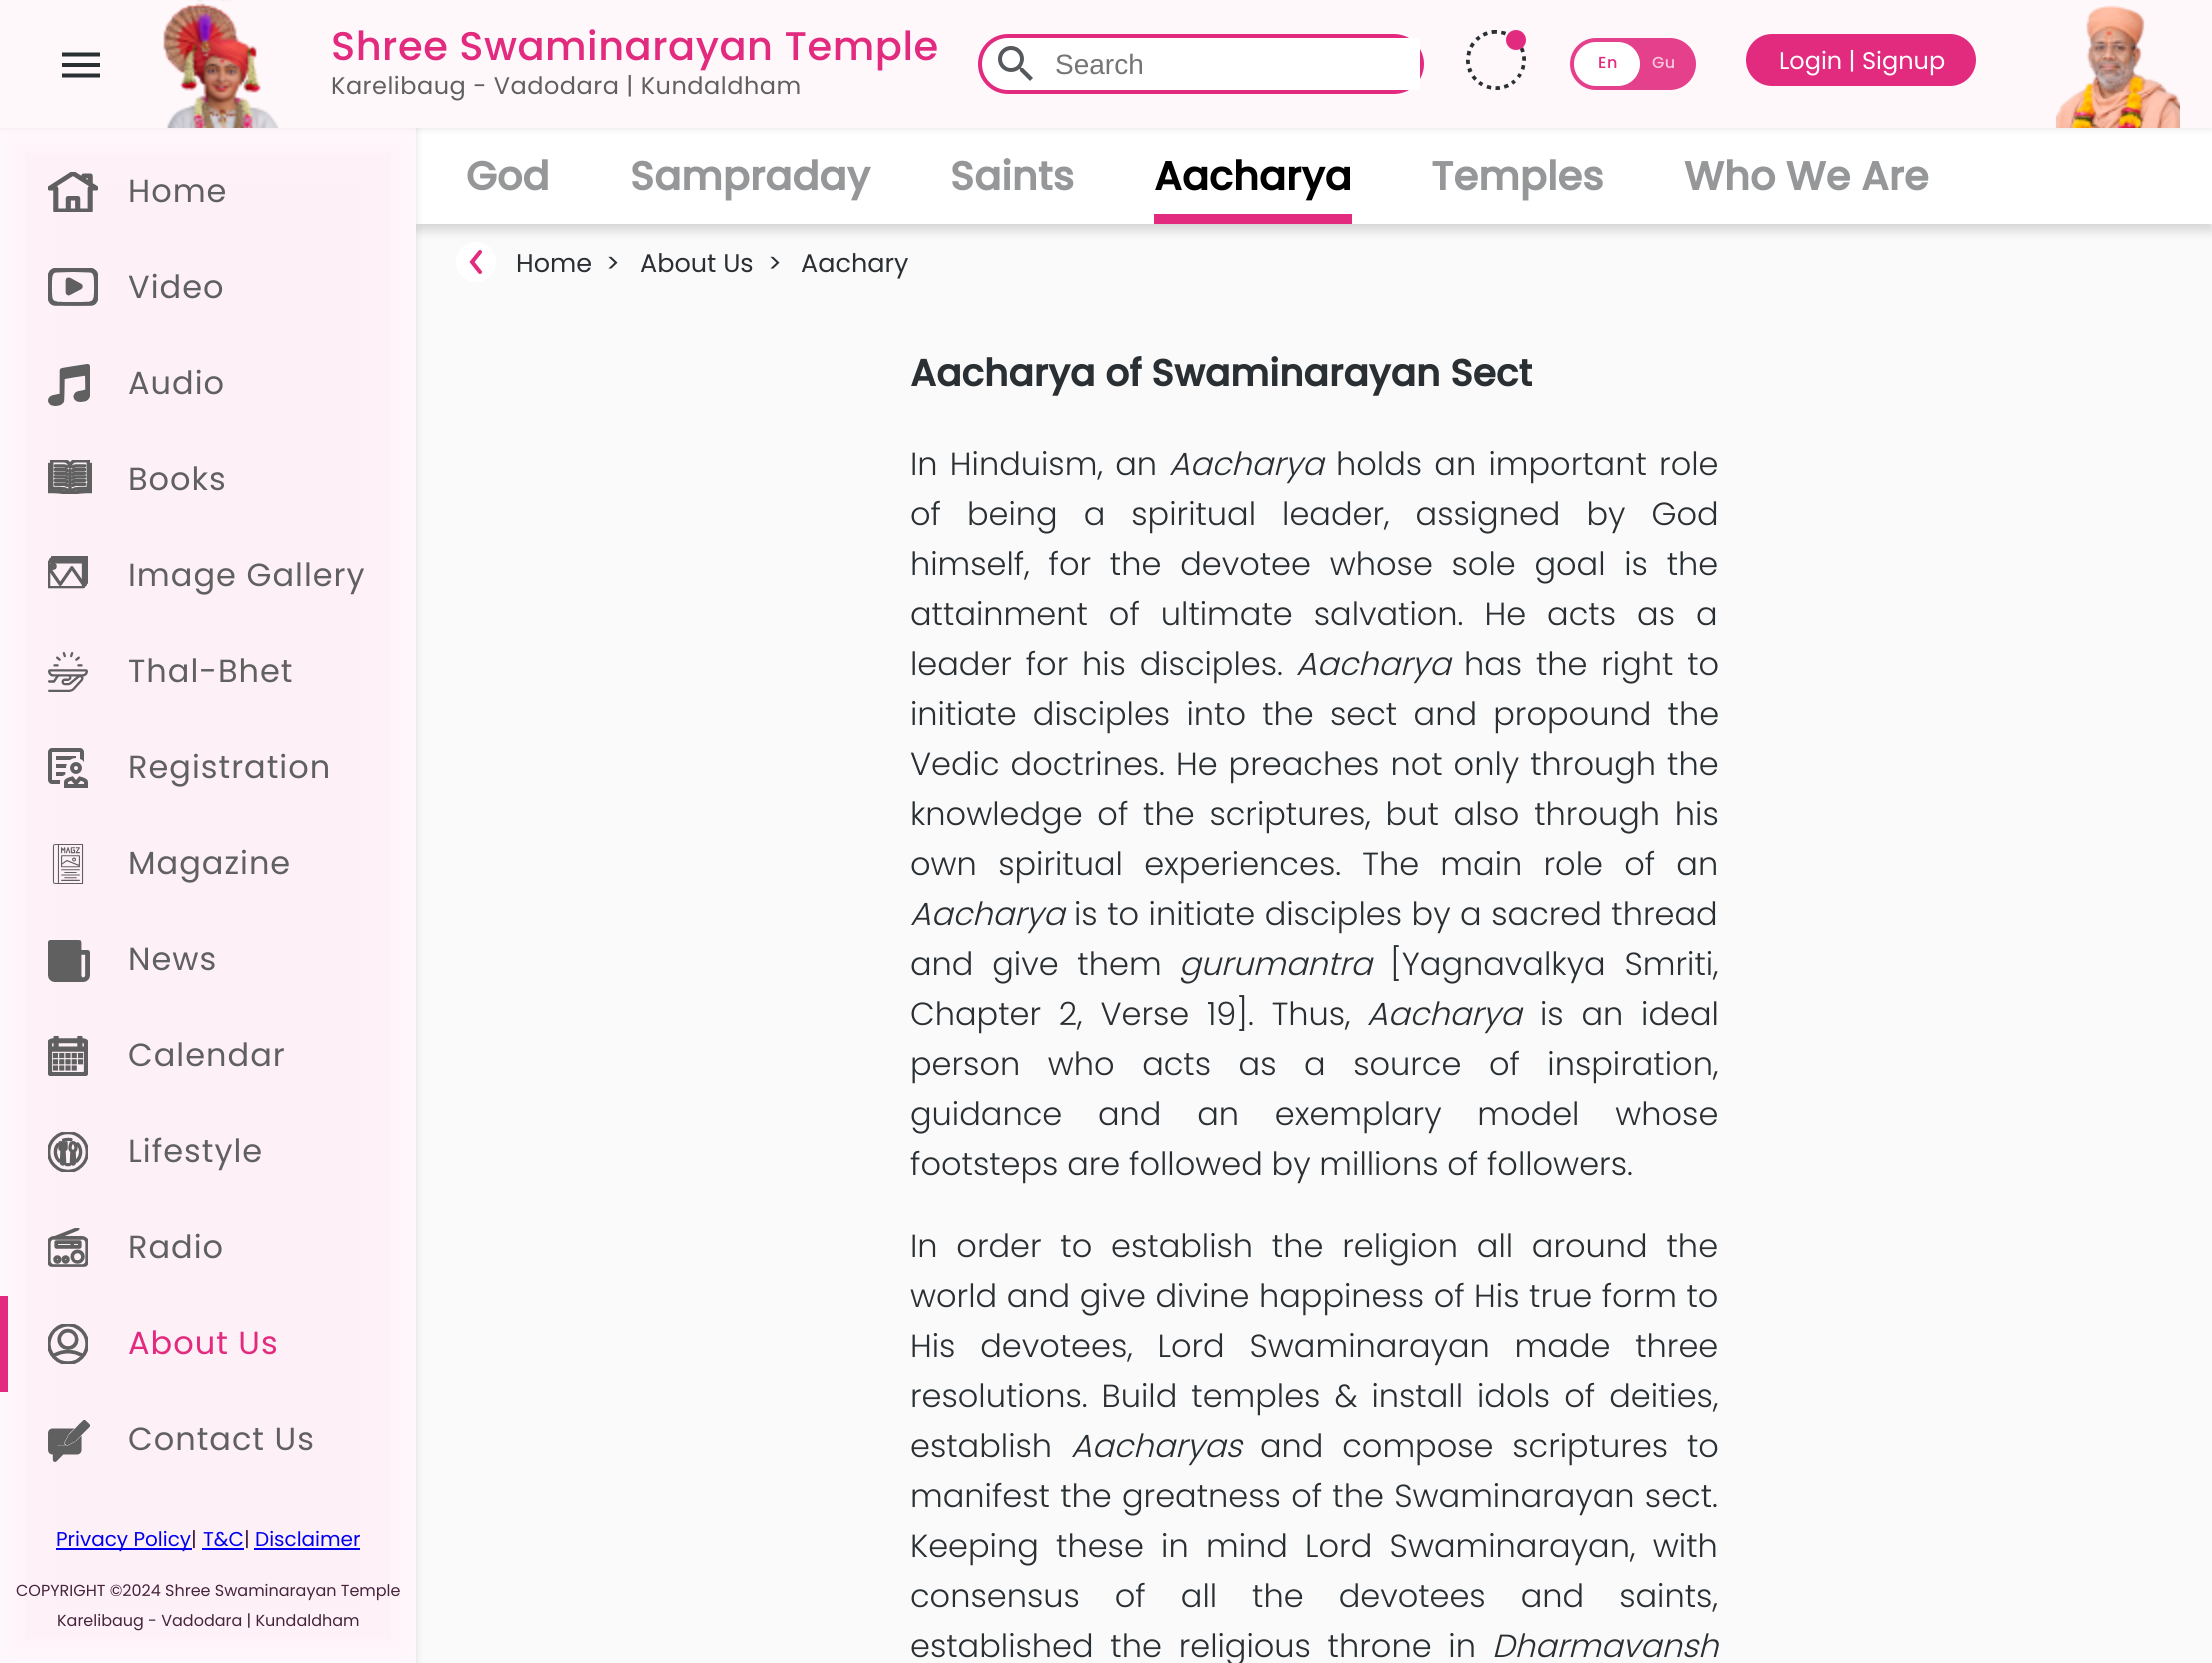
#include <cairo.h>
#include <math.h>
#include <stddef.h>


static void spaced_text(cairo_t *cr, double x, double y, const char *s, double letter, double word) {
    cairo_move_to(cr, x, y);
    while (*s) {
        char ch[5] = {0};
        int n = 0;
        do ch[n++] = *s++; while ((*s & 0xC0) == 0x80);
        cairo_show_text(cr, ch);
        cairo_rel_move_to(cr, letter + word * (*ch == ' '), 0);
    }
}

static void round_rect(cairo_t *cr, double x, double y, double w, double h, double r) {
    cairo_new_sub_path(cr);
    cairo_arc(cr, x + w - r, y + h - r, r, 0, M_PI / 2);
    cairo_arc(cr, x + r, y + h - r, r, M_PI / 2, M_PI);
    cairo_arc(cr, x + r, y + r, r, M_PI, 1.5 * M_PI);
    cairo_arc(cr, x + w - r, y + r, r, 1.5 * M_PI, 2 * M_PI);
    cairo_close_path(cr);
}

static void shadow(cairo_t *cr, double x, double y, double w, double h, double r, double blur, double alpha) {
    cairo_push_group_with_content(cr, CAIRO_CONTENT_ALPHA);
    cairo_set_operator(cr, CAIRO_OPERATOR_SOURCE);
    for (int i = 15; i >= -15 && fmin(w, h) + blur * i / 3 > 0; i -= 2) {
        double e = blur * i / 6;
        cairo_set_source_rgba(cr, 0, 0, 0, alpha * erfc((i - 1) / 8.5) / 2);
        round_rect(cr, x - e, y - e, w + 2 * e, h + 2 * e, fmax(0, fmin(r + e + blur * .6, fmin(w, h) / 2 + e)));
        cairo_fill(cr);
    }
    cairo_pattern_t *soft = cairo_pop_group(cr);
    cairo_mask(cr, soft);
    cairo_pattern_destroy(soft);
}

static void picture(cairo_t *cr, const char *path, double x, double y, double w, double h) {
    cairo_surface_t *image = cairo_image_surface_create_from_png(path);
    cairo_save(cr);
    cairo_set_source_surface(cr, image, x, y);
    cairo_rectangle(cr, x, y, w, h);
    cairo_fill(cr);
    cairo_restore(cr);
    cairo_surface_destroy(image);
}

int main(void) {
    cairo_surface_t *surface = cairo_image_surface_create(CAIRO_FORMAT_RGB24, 2212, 1663);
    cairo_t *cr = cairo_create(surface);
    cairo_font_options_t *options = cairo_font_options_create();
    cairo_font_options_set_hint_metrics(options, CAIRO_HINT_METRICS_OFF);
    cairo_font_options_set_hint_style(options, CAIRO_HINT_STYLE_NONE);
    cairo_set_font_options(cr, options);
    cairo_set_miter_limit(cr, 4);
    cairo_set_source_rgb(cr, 0.98, 0.98, 0.98);
    cairo_paint(cr);
    cairo_set_source_rgb(cr, 1, 1, 1);
    cairo_arc(cr, 476, 262, 20, 0, 2 * M_PI);
    cairo_fill(cr);
    cairo_set_source_rgb(cr, 0, 0, 0);
    shadow(cr, 416, 134, 1796, 96, 0, 6, 0.16);
    cairo_set_source_rgb(cr, 1, 1, 1);
    cairo_rectangle(cr, 416, 128, 1796, 96);
    cairo_fill(cr);
    cairo_set_source_rgb(cr, 0, 0, 0);
    shadow(cr, 0, 128, 416, 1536, 0, 4, 0.12);
    cairo_set_source_rgb(cr, 1, 1, 1);
    cairo_rectangle(cr, 0, 128, 416, 1535);
    cairo_fill(cr);
    cairo_set_source_rgb(cr, 0, 0, 0);
    shadow(cr, 0, 0, 2212, 128, 0, 4, 0.12);
    cairo_new_path(cr);
    cairo_move_to(cr, 480, 272);
    cairo_line_to(cr, 472, 262);
    cairo_line_to(cr, 480, 252);
    cairo_set_source_rgb(cr, 0.886, 0.165, 0.498);
    cairo_set_line_width(cr, 4);
    cairo_set_line_cap(cr, CAIRO_LINE_CAP_ROUND);
    cairo_stroke(cr);
    cairo_save(cr);
    cairo_rectangle(cr, 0, 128, 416, 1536);
    cairo_clip(cr);
    cairo_set_source_rgb(cr, 0.996, 0.941, 0.965);
    shadow(cr, 0, 128, 416, 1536, 0, 30, 1);
    cairo_restore(cr);
    cairo_set_source_rgb(cr, 1, 0.969, 0.984);
    cairo_rectangle(cr, 0, 0, 2212, 128);
    cairo_fill(cr);
    cairo_set_source_rgb(cr, 0.165, 0.184, 0.2);
    cairo_new_path(cr);
    cairo_move_to(cr, 62, 52.5);
    cairo_line_to(cr, 100, 52.5);
    cairo_line_to(cr, 100, 56.5);
    cairo_line_to(cr, 62, 56.5);
    cairo_close_path(cr);
    cairo_move_to(cr, 62, 67);
    cairo_line_to(cr, 62, 63);
    cairo_line_to(cr, 100, 63);
    cairo_line_to(cr, 100, 67);
    cairo_close_path(cr);
    cairo_move_to(cr, 62, 77.5);
    cairo_line_to(cr, 62, 73.5);
    cairo_line_to(cr, 100, 73.5);
    cairo_line_to(cr, 100, 77.5);
    cairo_close_path(cr);
    cairo_fill(cr);
    picture(cr, "img1.png", 163, 0, 116, 128);
    cairo_select_font_face(cr, "Poppins Medium", CAIRO_FONT_SLANT_NORMAL, CAIRO_FONT_WEIGHT_NORMAL);
    cairo_set_font_size(cr, 40);
    cairo_set_source_rgb(cr, 0.886, 0.165, 0.498);
    spaced_text(cr, 331, 60, "Shree Swaminarayan Temple", 0.5, 0);
    cairo_select_font_face(cr, "Poppins", CAIRO_FONT_SLANT_NORMAL, CAIRO_FONT_WEIGHT_NORMAL);
    cairo_set_font_size(cr, 24);
    cairo_set_source_rgb(cr, 0.376, 0.376, 0.376);
    spaced_text(cr, 331, 94, "Karelibaug - Vadodara | Kundaldham", 0.5, 0);
    cairo_set_source_rgb(cr, 1, 1, 1);
    round_rect(cr, 980, 36, 442, 56, 28);
    cairo_fill_preserve(cr);
    cairo_set_source_rgb(cr, 0.886, 0.165, 0.498);
    cairo_set_line_cap(cr, CAIRO_LINE_CAP_BUTT);
    cairo_stroke(cr);
    picture(cr, "img2.png", 998, 46, 35, 35);
    cairo_set_source_rgb(cr, 1, 1, 1);
    cairo_rectangle(cr, 1394, 38, 26, 52);
    cairo_fill(cr);
    cairo_select_font_face(cr, "Liberation Sans", CAIRO_FONT_SLANT_NORMAL, CAIRO_FONT_WEIGHT_NORMAL);
    cairo_set_font_size(cr, 28);
    cairo_set_source_rgb(cr, 0.459, 0.459, 0.459);
    cairo_move_to(cr, 1055, 74);
    cairo_show_text(cr, "Search");
    picture(cr, "img3.png", 1466, 30, 60, 60);
    cairo_set_source_rgb(cr, 0.886, 0.165, 0.498);
    cairo_arc(cr, 1516, 40, 10, 0, 2 * M_PI);
    cairo_fill(cr);
    cairo_set_source_rgb(cr, 0.898, 0.251, 0.549);
    round_rect(cr, 1570, 38, 126, 52, 26);
    cairo_fill(cr);
    cairo_set_source_rgb(cr, 1, 1, 1);
    round_rect(cr, 1574, 42, 66, 44, 22);
    cairo_fill(cr);
    cairo_select_font_face(cr, "Poppins Medium", CAIRO_FONT_SLANT_NORMAL, CAIRO_FONT_WEIGHT_NORMAL);
    cairo_set_font_size(cr, 16);
    cairo_set_source_rgb(cr, 0.886, 0.165, 0.498);
    spaced_text(cr, 1598, 68, "En", 0.5, 0);
    cairo_set_source_rgb(cr, 0.969, 0.776, 0.867);
    spaced_text(cr, 1652, 68, "Gu", 0.5, 0);
    cairo_set_source_rgb(cr, 0.886, 0.165, 0.498);
    round_rect(cr, 1746, 34, 230, 52, 26);
    cairo_fill(cr);
    cairo_select_font_face(cr, "Poppins", CAIRO_FONT_SLANT_NORMAL, CAIRO_FONT_WEIGHT_NORMAL);
    cairo_set_font_size(cr, 24);
    cairo_set_source_rgb(cr, 1, 1, 1);
    cairo_move_to(cr, 1779, 69);
    cairo_show_text(cr, "Login | Signup");
    picture(cr, "img4.png", 2056, 5, 124, 123);
    picture(cr, "img5.png", 48, 172, 50, 40);
    cairo_set_font_size(cr, 32);
    cairo_set_source_rgb(cr, 0.376, 0.376, 0.376);
    spaced_text(cr, 128, 202, "Home", 1, 0);
    picture(cr, "img6.png", 48, 268, 50, 38);
    spaced_text(cr, 128, 298, "Video", 1, 0);
    picture(cr, "img7.png", 48, 364, 42, 42);
    spaced_text(cr, 128, 394, "Audio", 1, 0);
    picture(cr, "img8.png", 48, 460, 44, 34);
    spaced_text(cr, 128, 490, "Books", 1, 0);
    picture(cr, "img9.png", 48, 556, 40, 33);
    spaced_text(cr, 128, 586, "Image Gallery", 1, 0);
    picture(cr, "img10.png", 48, 652, 40, 40);
    spaced_text(cr, 128, 682, "Thal-Bhet", 1, 0);
    picture(cr, "img11.png", 48, 748, 40, 40);
    spaced_text(cr, 128, 778, "Registration", 1, 0);
    picture(cr, "img12.png", 52, 844, 32, 40);
    spaced_text(cr, 128, 874, "Magazine", 1, 0);
    picture(cr, "img13.png", 48, 940, 42, 42);
    spaced_text(cr, 128, 970, "News", 1, 0);
    picture(cr, "img14.png", 48, 1036, 40, 40);
    spaced_text(cr, 128, 1066, "Calendar", 1, 0);
    picture(cr, "img15.png", 48, 1132, 40, 40);
    spaced_text(cr, 128, 1162, "Lifestyle", 1, 0);
    picture(cr, "img16.png", 48, 1228, 40, 39);
    spaced_text(cr, 128, 1258, "Radio", 1, 0);
    cairo_set_source_rgb(cr, 0.886, 0.165, 0.498);
    cairo_rectangle(cr, 0, 1296, 8, 96);
    cairo_fill(cr);
    picture(cr, "img17.png", 48, 1324, 40, 40);
    spaced_text(cr, 128, 1354, "About Us", 1, 0);
    picture(cr, "img18.png", 48, 1420, 42, 42);
    cairo_set_source_rgb(cr, 0.376, 0.376, 0.376);
    spaced_text(cr, 128, 1450, "Contact Us", 1, 0);
    cairo_set_source_rgb(cr, 0, 0, 0.933);
    cairo_rectangle(cr, 56, 1548, 136, 2);
    cairo_fill(cr);
    cairo_set_font_size(cr, 20);
    cairo_move_to(cr, 56, 1546);
    cairo_show_text(cr, "Privacy Policy");
    cairo_set_source_rgb(cr, 0.271, 0.141, 0.235);
    cairo_move_to(cr, 191, 1546);
    cairo_show_text(cr, "|");
    cairo_set_source_rgb(cr, 0, 0, 0.933);
    cairo_move_to(cr, 203, 1546);
    cairo_show_text(cr, "T&C");
    cairo_rectangle(cr, 202, 1548, 42, 2);
    cairo_fill(cr);
    cairo_set_source_rgb(cr, 0.271, 0.141, 0.235);
    cairo_move_to(cr, 244, 1546);
    cairo_show_text(cr, "|");
    cairo_set_source_rgb(cr, 0, 0, 0.933);
    cairo_move_to(cr, 255, 1546);
    cairo_show_text(cr, "Disclaimer");
    cairo_rectangle(cr, 254, 1548, 106, 2);
    cairo_fill(cr);
    cairo_set_font_size(cr, 16);
    cairo_set_source_rgb(cr, 0.271, 0.141, 0.235);
    cairo_move_to(cr, 16, 1596);
    cairo_show_text(cr, "COPYRIGHT ©2024 Shree Swaminarayan Temple");
    cairo_move_to(cr, 57, 1626);
    cairo_show_text(cr, "Karelibaug - Vadodara | Kundaldham");
    cairo_select_font_face(cr, "Poppins", CAIRO_FONT_SLANT_NORMAL, CAIRO_FONT_WEIGHT_BOLD);
    cairo_set_font_size(cr, 40);
    cairo_set_source_rgb(cr, 0.584, 0.592, 0.6);
    cairo_move_to(cr, 466, 190);
    cairo_show_text(cr, "God");
    cairo_move_to(cr, 630, 190);
    cairo_show_text(cr, "Sampraday");
    cairo_move_to(cr, 950, 190);
    cairo_show_text(cr, "Saints");
    cairo_set_source_rgb(cr, 0.886, 0.165, 0.498);
    cairo_rectangle(cr, 1154, 214, 198, 10);
    cairo_fill(cr);
    cairo_set_source_rgb(cr, 0, 0, 0);
    cairo_move_to(cr, 1154, 190);
    cairo_show_text(cr, "Aacharya");
    cairo_set_source_rgb(cr, 0.584, 0.592, 0.6);
    cairo_move_to(cr, 1431, 190);
    cairo_show_text(cr, "Temples");
    cairo_move_to(cr, 1684, 190);
    cairo_show_text(cr, "Who We Are");
    cairo_select_font_face(cr, "Poppins", CAIRO_FONT_SLANT_NORMAL, CAIRO_FONT_WEIGHT_NORMAL);
    cairo_set_font_size(cr, 25.5);
    cairo_set_source_rgb(cr, 0.165, 0.184, 0.2);
    cairo_move_to(cr, 516, 272);
    cairo_show_text(cr, "Home");
    cairo_move_to(cr, 606, 272);
    cairo_show_text(cr, ">");
    cairo_move_to(cr, 640, 272);
    cairo_show_text(cr, "About Us");
    cairo_move_to(cr, 768, 272);
    cairo_show_text(cr, ">");
    cairo_move_to(cr, 801, 272);
    cairo_show_text(cr, "Aachary");
    cairo_select_font_face(cr, "Poppins", CAIRO_FONT_SLANT_NORMAL, CAIRO_FONT_WEIGHT_BOLD);
    cairo_set_font_size(cr, 37.5);
    cairo_move_to(cr, 910, 386);
    cairo_show_text(cr, "Aacharya of Swaminarayan Sect");
    cairo_select_font_face(cr, "Poppins Light", CAIRO_FONT_SLANT_NORMAL, CAIRO_FONT_WEIGHT_NORMAL);
    cairo_set_font_size(cr, 32);
    spaced_text(cr, 910, 475, "In Hinduism, an", 0, 3.5);
    cairo_select_font_face(cr, "Poppins Light", CAIRO_FONT_SLANT_ITALIC, CAIRO_FONT_WEIGHT_NORMAL);
    cairo_move_to(cr, 1169, 475);
    cairo_show_text(cr, "Aacharya");
    cairo_select_font_face(cr, "Poppins Light", CAIRO_FONT_SLANT_NORMAL, CAIRO_FONT_WEIGHT_NORMAL);
    spaced_text(cr, 1336, 475, "holds an important role", 0, 3.5);
    spaced_text(cr, 910, 525, "of being a spiritual leader, assigned by God", 0, 17.25);
    spaced_text(cr, 910, 575, "himself, for the devotee whose sole goal is the", 0, 10);
    spaced_text(cr, 910, 625, "attainment of ultimate salvation. He acts as a", 0, 12.25);
    spaced_text(cr, 910, 675, "leader for his disciples.", 0, 5);
    cairo_select_font_face(cr, "Poppins Light", CAIRO_FONT_SLANT_ITALIC, CAIRO_FONT_WEIGHT_NORMAL);
    cairo_move_to(cr, 1296, 675);
    cairo_show_text(cr, "Aacharya");
    cairo_select_font_face(cr, "Poppins Light", CAIRO_FONT_SLANT_NORMAL, CAIRO_FONT_WEIGHT_NORMAL);
    spaced_text(cr, 1464, 675, "has the right to", 0, 5);
    spaced_text(cr, 910, 725, "initiate disciples into the sect and propound the", 0, 7.5);
    spaced_text(cr, 910, 775, "Vedic doctrines. He preaches not only through the", 0, 2.25);
    spaced_text(cr, 910, 825, "knowledge of the scriptures, but also through his", 0, 6);
    spaced_text(cr, 910, 875, "own spiritual experiences. The main role of an", 0, 12.5);
    cairo_select_font_face(cr, "Poppins Light", CAIRO_FONT_SLANT_ITALIC, CAIRO_FONT_WEIGHT_NORMAL);
    cairo_move_to(cr, 910, 925);
    cairo_show_text(cr, "Aacharya");
    cairo_select_font_face(cr, "Poppins Light", CAIRO_FONT_SLANT_NORMAL, CAIRO_FONT_WEIGHT_NORMAL);
    spaced_text(cr, 1074, 925, "is to initiate disciples by a sacred thread", 0, 0.75);
    spaced_text(cr, 910, 975, "and give them", 0, 10);
    cairo_select_font_face(cr, "Poppins Light", CAIRO_FONT_SLANT_ITALIC, CAIRO_FONT_WEIGHT_NORMAL);
    cairo_move_to(cr, 1179, 975);
    cairo_show_text(cr, "gurumantra");
    cairo_select_font_face(cr, "Poppins Light", CAIRO_FONT_SLANT_NORMAL, CAIRO_FONT_WEIGHT_NORMAL);
    spaced_text(cr, 1390, 975, "[Yagnavalkya Smriti,", 0, 10);
    spaced_text(cr, 910, 1025, "Chapter 2, Verse 19]. Thus,", 0, 9);
    cairo_select_font_face(cr, "Poppins Light", CAIRO_FONT_SLANT_ITALIC, CAIRO_FONT_WEIGHT_NORMAL);
    cairo_move_to(cr, 1367, 1025);
    cairo_show_text(cr, "Aacharya");
    cairo_select_font_face(cr, "Poppins Light", CAIRO_FONT_SLANT_NORMAL, CAIRO_FONT_WEIGHT_NORMAL);
    spaced_text(cr, 1540, 1025, "is an ideal", 0, 9);
    spaced_text(cr, 910, 1075, "person who acts as a source of inspiration,", 0, 18.75);
    spaced_text(cr, 910, 1125, "guidance and an exemplary model whose", 0, 27);
    cairo_move_to(cr, 910, 1175);
    cairo_show_text(cr, "footsteps are followed by millions of followers.");
    spaced_text(cr, 910, 1257, "In order to establish the religion all around the", 0, 10);
    spaced_text(cr, 910, 1307, "world and give divine happiness of His true form to", 0, 0.75);
    spaced_text(cr, 910, 1357, "His devotees, Lord Swaminarayan made three", 0, 16);
    spaced_text(cr, 910, 1407, "resolutions. Build temples & install idols of deities,", 0, 5.25);
    cairo_move_to(cr, 910, 1457);
    cairo_show_text(cr, "establish");
    cairo_select_font_face(cr, "Poppins Light", CAIRO_FONT_SLANT_ITALIC, CAIRO_FONT_WEIGHT_NORMAL);
    cairo_move_to(cr, 1071, 1457);
    cairo_show_text(cr, "Aacharyas");
    cairo_select_font_face(cr, "Poppins Light", CAIRO_FONT_SLANT_NORMAL, CAIRO_FONT_WEIGHT_NORMAL);
    spaced_text(cr, 1260, 1457, "and compose scriptures to", 0, 10);
    spaced_text(cr, 910, 1507, "manifest the greatness of the Swaminarayan sect.", 0, 1.5);
    spaced_text(cr, 910, 1557, "Keeping these in mind Lord Swaminarayan, with", 0, 8.5);
    spaced_text(cr, 910, 1607, "consensus of all the devotees and saints,", 0, 26.25);
    spaced_text(cr, 910, 1657, "established the religious throne in", 0, 8);
    cairo_select_font_face(cr, "Poppins Light", CAIRO_FONT_SLANT_ITALIC, CAIRO_FONT_WEIGHT_NORMAL);
    cairo_move_to(cr, 1492, 1657);
    cairo_show_text(cr, "Dharmavansh");
    cairo_surface_write_to_png(surface, "page.png");
    cairo_font_options_destroy(options);
    cairo_destroy(cr);
    cairo_surface_destroy(surface);
    return 0;
}
